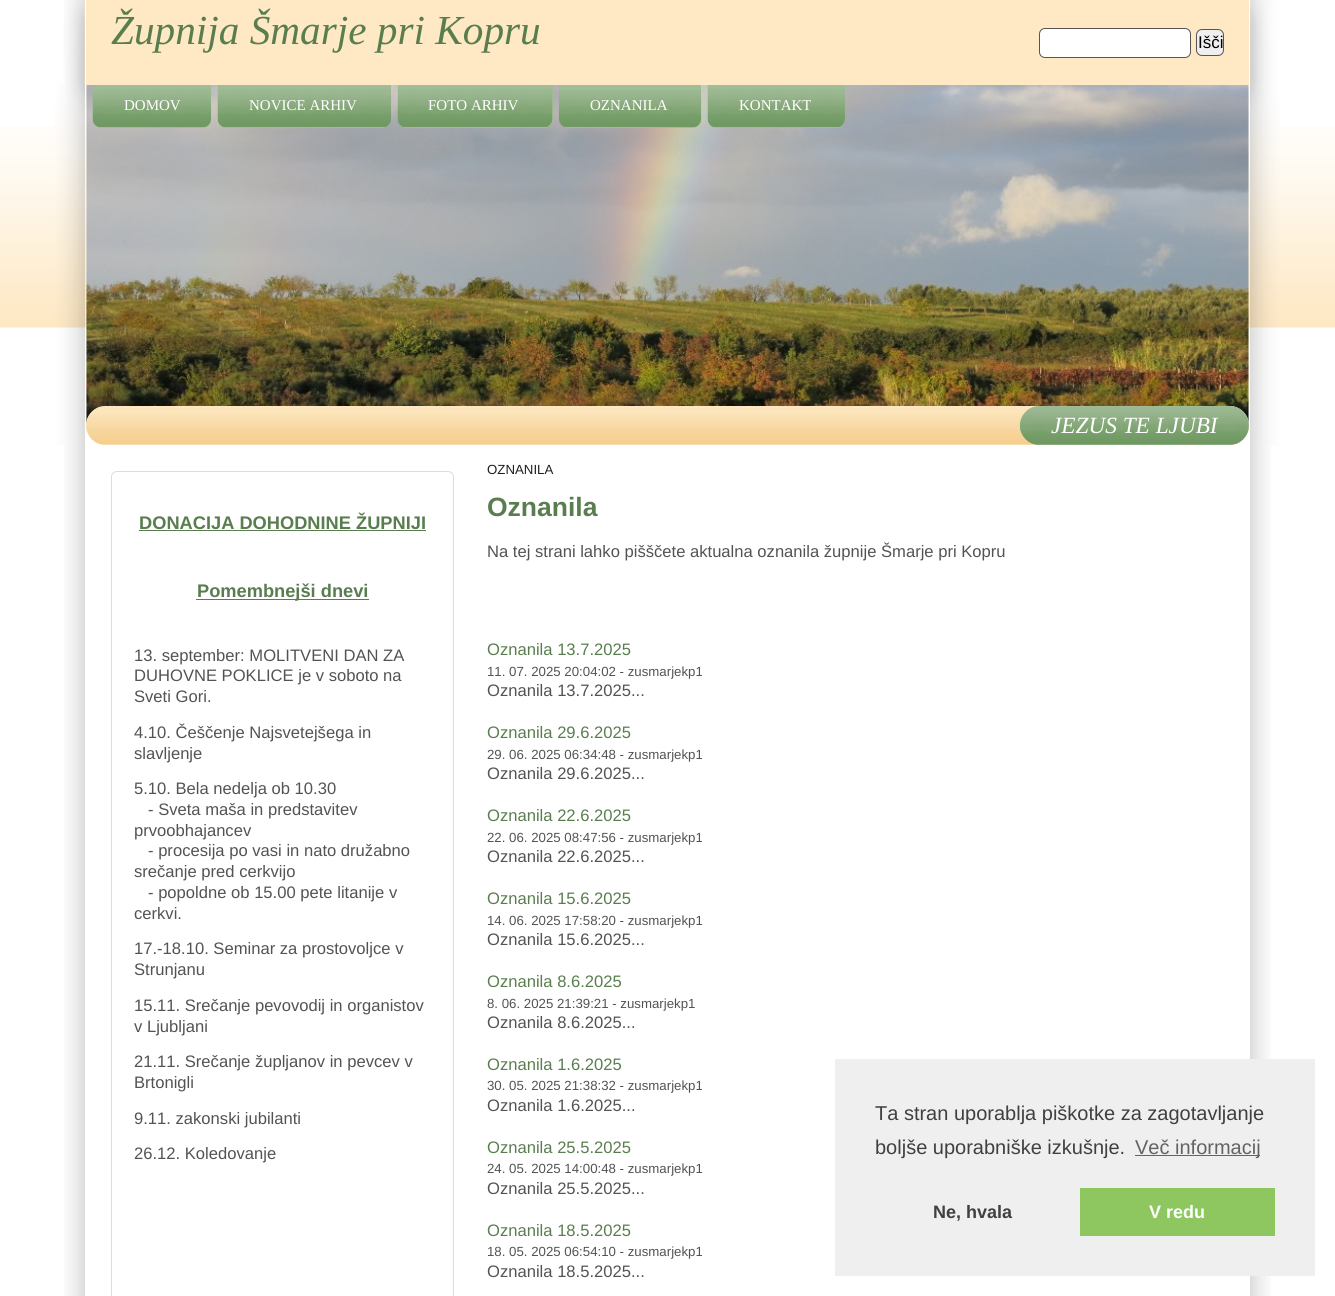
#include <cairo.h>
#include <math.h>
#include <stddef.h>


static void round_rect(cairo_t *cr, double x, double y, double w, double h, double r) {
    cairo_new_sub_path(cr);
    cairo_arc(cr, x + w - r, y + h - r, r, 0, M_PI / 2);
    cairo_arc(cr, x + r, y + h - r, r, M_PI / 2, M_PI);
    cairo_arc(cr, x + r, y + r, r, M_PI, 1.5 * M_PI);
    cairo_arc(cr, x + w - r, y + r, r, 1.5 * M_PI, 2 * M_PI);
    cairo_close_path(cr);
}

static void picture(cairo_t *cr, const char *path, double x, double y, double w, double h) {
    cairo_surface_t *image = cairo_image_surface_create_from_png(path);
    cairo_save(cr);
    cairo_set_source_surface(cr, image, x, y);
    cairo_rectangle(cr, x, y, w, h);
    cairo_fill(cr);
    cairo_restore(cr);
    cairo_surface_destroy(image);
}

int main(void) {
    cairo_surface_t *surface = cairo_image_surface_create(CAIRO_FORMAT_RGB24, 1335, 1296);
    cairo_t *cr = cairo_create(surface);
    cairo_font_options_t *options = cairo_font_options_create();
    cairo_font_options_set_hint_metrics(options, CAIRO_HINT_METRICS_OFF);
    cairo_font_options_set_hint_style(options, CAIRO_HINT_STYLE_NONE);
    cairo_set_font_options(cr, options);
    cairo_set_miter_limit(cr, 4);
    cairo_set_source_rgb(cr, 1, 1, 1);
    cairo_paint(cr);
    picture(cr, "img1.png", 0, 126, 1335, 202);
    picture(cr, "img2.png", 55, 0, 30, 445);
    picture(cr, "img3.png", 1250, 0, 30, 445);
    cairo_set_source_rgb(cr, 0.996, 0.914, 0.769);
    cairo_rectangle(cr, 86, 0, 1163, 85);
    cairo_fill(cr);
    cairo_select_font_face(cr, "Liberation Serif", CAIRO_FONT_SLANT_ITALIC, CAIRO_FONT_WEIGHT_NORMAL);
    cairo_set_font_size(cr, 41.25);
    cairo_set_source_rgb(cr, 0.353, 0.49, 0.31);
    cairo_move_to(cr, 111, 44);
    cairo_show_text(cr, "Župnija Šmarje pri Kopru");
    cairo_set_source_rgb(cr, 1, 1, 1);
    round_rect(cr, 1039.5, 28.5, 151, 29, 5.5);
    cairo_fill_preserve(cr);
    cairo_set_source_rgb(cr, 0.333, 0.333, 0.333);
    cairo_set_line_width(cr, 1);
    cairo_stroke(cr);
    cairo_set_source_rgb(cr, 0.937, 0.937, 0.937);
    round_rect(cr, 1196.5, 29.5, 27, 26, 5.5);
    cairo_fill_preserve(cr);
    cairo_set_source_rgb(cr, 0.333, 0.333, 0.333);
    cairo_stroke(cr);
    cairo_select_font_face(cr, "Liberation Sans", CAIRO_FONT_SLANT_NORMAL, CAIRO_FONT_WEIGHT_NORMAL);
    cairo_set_font_size(cr, 17);
    cairo_set_source_rgb(cr, 0, 0, 0);
    cairo_move_to(cr, 1198, 48);
    cairo_show_text(cr, "Išči");
    picture(cr, "img4.png", 86, 85, 1163, 344);
    cairo_set_source_rgb(cr, 0.631, 0.741, 0.596);
    cairo_new_path(cr);
    cairo_move_to(cr, 93, 85);
    cairo_line_to(cr, 211, 85);
    cairo_line_to(cr, 211, 119);
    cairo_curve_to(cr, 211, 124, 207, 128, 202, 128);
    cairo_line_to(cr, 102, 128);
    cairo_curve_to(cr, 97, 128, 93, 124, 93, 119);
    cairo_close_path(cr);
    cairo_fill(cr);
    picture(cr, "img5.png", 92, 85, 120, 42);
    cairo_select_font_face(cr, "Liberation Serif", CAIRO_FONT_SLANT_NORMAL, CAIRO_FONT_WEIGHT_NORMAL);
    cairo_set_font_size(cr, 15);
    cairo_set_source_rgb(cr, 1, 1, 1);
    cairo_move_to(cr, 124, 110);
    cairo_show_text(cr, "DOMOV");
    cairo_set_source_rgb(cr, 0.631, 0.741, 0.596);
    cairo_new_path(cr);
    cairo_move_to(cr, 218, 85);
    cairo_line_to(cr, 391, 85);
    cairo_line_to(cr, 391, 119);
    cairo_curve_to(cr, 391, 124, 387, 128, 382, 128);
    cairo_line_to(cr, 227, 128);
    cairo_curve_to(cr, 222, 128, 218, 124, 218, 119);
    cairo_close_path(cr);
    cairo_fill(cr);
    picture(cr, "img6.png", 217, 85, 175, 42);
    cairo_set_source_rgb(cr, 1, 1, 1);
    cairo_move_to(cr, 249, 110);
    cairo_show_text(cr, "NOVICE ARHIV");
    cairo_set_source_rgb(cr, 0.631, 0.741, 0.596);
    cairo_new_path(cr);
    cairo_move_to(cr, 398, 85);
    cairo_line_to(cr, 553, 85);
    cairo_line_to(cr, 553, 119);
    cairo_curve_to(cr, 553, 124, 549, 128, 544, 128);
    cairo_line_to(cr, 407, 128);
    cairo_curve_to(cr, 402, 128, 398, 124, 398, 119);
    cairo_close_path(cr);
    cairo_fill(cr);
    picture(cr, "img7.png", 397, 85, 156, 42);
    cairo_set_source_rgb(cr, 1, 1, 1);
    cairo_move_to(cr, 428, 110);
    cairo_show_text(cr, "FOTO ARHIV");
    cairo_set_source_rgb(cr, 0.631, 0.741, 0.596);
    cairo_new_path(cr);
    cairo_move_to(cr, 559, 85);
    cairo_line_to(cr, 701, 85);
    cairo_line_to(cr, 701, 119);
    cairo_curve_to(cr, 701, 124, 697, 128, 692, 128);
    cairo_line_to(cr, 568, 128);
    cairo_curve_to(cr, 563, 128, 559, 124, 559, 119);
    cairo_close_path(cr);
    cairo_fill(cr);
    picture(cr, "img8.png", 558, 90, 144, 37);
    cairo_set_source_rgb(cr, 1, 1, 1);
    cairo_move_to(cr, 590, 110);
    cairo_show_text(cr, "OZNANILA");
    cairo_set_source_rgb(cr, 0.631, 0.741, 0.596);
    cairo_new_path(cr);
    cairo_move_to(cr, 708, 85);
    cairo_line_to(cr, 845, 85);
    cairo_line_to(cr, 845, 119);
    cairo_curve_to(cr, 845, 124, 841, 128, 836, 128);
    cairo_line_to(cr, 717, 128);
    cairo_curve_to(cr, 712, 128, 708, 124, 708, 119);
    cairo_close_path(cr);
    cairo_fill(cr);
    picture(cr, "img9.png", 707, 85, 138, 42);
    cairo_set_source_rgb(cr, 1, 1, 1);
    cairo_move_to(cr, 739, 110);
    cairo_show_text(cr, "KONTAKT");
    cairo_set_source_rgb(cr, 0.996, 0.914, 0.769);
    round_rect(cr, 86, 406, 1163, 39, 19.5);
    cairo_fill(cr);
    picture(cr, "img10.png", 86, 406, 1163, 39);
    cairo_set_source_rgb(cr, 0.631, 0.741, 0.596);
    round_rect(cr, 1020, 406, 229, 39, 19.5);
    cairo_fill(cr);
    picture(cr, "img11.png", 1020, 406, 229, 39);
    cairo_select_font_face(cr, "Liberation Serif", CAIRO_FONT_SLANT_ITALIC, CAIRO_FONT_WEIGHT_NORMAL);
    cairo_set_font_size(cr, 23.25);
    cairo_set_source_rgb(cr, 1, 1, 1);
    cairo_move_to(cr, 1051, 433);
    cairo_show_text(cr, "JEZUS TE LJUBI");
    picture(cr, "img12.png", 64, 445, 21, 851);
    picture(cr, "img13.png", 1250, 445, 21, 851);
    round_rect(cr, 111.5, 471.5, 342, 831, 5.5);
    cairo_set_source_rgb(cr, 0.867, 0.867, 0.867);
    cairo_stroke(cr);
    cairo_select_font_face(cr, "Liberation Sans", CAIRO_FONT_SLANT_NORMAL, CAIRO_FONT_WEIGHT_BOLD);
    cairo_set_font_size(cr, 18.25);
    cairo_set_source_rgb(cr, 0.353, 0.49, 0.31);
    cairo_move_to(cr, 139, 529);
    cairo_show_text(cr, "DONACIJA DOHODNINE ŽUPNIJI");
    cairo_rectangle(cr, 139, 530, 287, 1);
    cairo_fill(cr);
    cairo_rectangle(cr, 196, 599, 173, 1);
    cairo_fill(cr);
    cairo_move_to(cr, 197, 597);
    cairo_show_text(cr, "Pomembnejši dnevi");
    cairo_select_font_face(cr, "Liberation Sans", CAIRO_FONT_SLANT_NORMAL, CAIRO_FONT_WEIGHT_NORMAL);
    cairo_set_font_size(cr, 16.6);
    cairo_set_source_rgb(cr, 0.325, 0.325, 0.325);
    cairo_move_to(cr, 134, 661);
    cairo_show_text(cr, "13. september: MOLITVENI DAN ZA");
    cairo_move_to(cr, 134, 681);
    cairo_show_text(cr, "DUHOVNE POKLICE je v soboto na");
    cairo_move_to(cr, 134, 702);
    cairo_show_text(cr, "Sveti Gori.");
    cairo_move_to(cr, 134, 738);
    cairo_show_text(cr, "4.10. Češčenje Najsvetejšega in");
    cairo_move_to(cr, 134, 759);
    cairo_show_text(cr, "slavljenje");
    cairo_move_to(cr, 134, 794);
    cairo_show_text(cr, "5.10. Bela nedelja ob 10.30");
    cairo_move_to(cr, 148, 815);
    cairo_show_text(cr, "- Sveta maša in predstavitev");
    cairo_move_to(cr, 134, 836);
    cairo_show_text(cr, "prvoobhajancev");
    cairo_move_to(cr, 148, 856);
    cairo_show_text(cr, "- procesija po vasi in nato družabno");
    cairo_move_to(cr, 134, 877);
    cairo_show_text(cr, "srečanje pred cerkvijo");
    cairo_move_to(cr, 148, 898);
    cairo_show_text(cr, "- popoldne ob 15.00 pete litanije v");
    cairo_move_to(cr, 134, 919);
    cairo_show_text(cr, "cerkvi.");
    cairo_move_to(cr, 134, 954);
    cairo_show_text(cr, "17.-18.10. Seminar za prostovoljce v");
    cairo_move_to(cr, 134, 975);
    cairo_show_text(cr, "Strunjanu");
    cairo_move_to(cr, 134, 1011);
    cairo_show_text(cr, "15.11. Srečanje pevovodij in organistov");
    cairo_move_to(cr, 134, 1032);
    cairo_show_text(cr, "v Ljubljani");
    cairo_move_to(cr, 134, 1067);
    cairo_show_text(cr, "21.11. Srečanje župljanov in pevcev v");
    cairo_move_to(cr, 134, 1088);
    cairo_show_text(cr, "Brtonigli");
    cairo_move_to(cr, 134, 1124);
    cairo_show_text(cr, "9.11. zakonski jubilanti");
    cairo_move_to(cr, 134, 1159);
    cairo_show_text(cr, "26.12. Koledovanje");
    cairo_set_font_size(cr, 13.25);
    cairo_set_source_rgb(cr, 0.118, 0.125, 0.106);
    cairo_move_to(cr, 487, 474);
    cairo_show_text(cr, "OZNANILA");
    cairo_select_font_face(cr, "Liberation Sans", CAIRO_FONT_SLANT_NORMAL, CAIRO_FONT_WEIGHT_BOLD);
    cairo_set_font_size(cr, 26.5);
    cairo_set_source_rgb(cr, 0.353, 0.49, 0.31);
    cairo_move_to(cr, 487, 516);
    cairo_show_text(cr, "Oznanila");
    cairo_select_font_face(cr, "Liberation Sans", CAIRO_FONT_SLANT_NORMAL, CAIRO_FONT_WEIGHT_NORMAL);
    cairo_set_font_size(cr, 16.6);
    cairo_set_source_rgb(cr, 0.325, 0.325, 0.325);
    cairo_move_to(cr, 487, 557);
    cairo_show_text(cr, "Na tej strani lahko pišščete aktualna oznanila župnije Šmarje pri Kopru");
    cairo_set_source_rgb(cr, 0.353, 0.49, 0.31);
    cairo_move_to(cr, 487, 655);
    cairo_show_text(cr, "Oznanila 13.7.2025");
    cairo_set_font_size(cr, 13.25);
    cairo_set_source_rgb(cr, 0.325, 0.325, 0.325);
    cairo_move_to(cr, 487, 676);
    cairo_show_text(cr, "11. 07. 2025 20:04:02 - zusmarjekp1");
    cairo_set_font_size(cr, 16.6);
    cairo_move_to(cr, 487, 696);
    cairo_show_text(cr, "Oznanila 13.7.2025...");
    cairo_set_source_rgb(cr, 0.353, 0.49, 0.31);
    cairo_move_to(cr, 487, 738);
    cairo_show_text(cr, "Oznanila 29.6.2025");
    cairo_set_font_size(cr, 13.25);
    cairo_set_source_rgb(cr, 0.325, 0.325, 0.325);
    cairo_move_to(cr, 487, 759);
    cairo_show_text(cr, "29. 06. 2025 06:34:48 - zusmarjekp1");
    cairo_set_font_size(cr, 16.6);
    cairo_move_to(cr, 487, 779);
    cairo_show_text(cr, "Oznanila 29.6.2025...");
    cairo_set_source_rgb(cr, 0.353, 0.49, 0.31);
    cairo_move_to(cr, 487, 821);
    cairo_show_text(cr, "Oznanila 22.6.2025");
    cairo_set_font_size(cr, 13.25);
    cairo_set_source_rgb(cr, 0.325, 0.325, 0.325);
    cairo_move_to(cr, 487, 842);
    cairo_show_text(cr, "22. 06. 2025 08:47:56 - zusmarjekp1");
    cairo_set_font_size(cr, 16.6);
    cairo_move_to(cr, 487, 862);
    cairo_show_text(cr, "Oznanila 22.6.2025...");
    cairo_set_source_rgb(cr, 0.353, 0.49, 0.31);
    cairo_move_to(cr, 487, 904);
    cairo_show_text(cr, "Oznanila 15.6.2025");
    cairo_set_font_size(cr, 13.25);
    cairo_set_source_rgb(cr, 0.325, 0.325, 0.325);
    cairo_move_to(cr, 487, 925);
    cairo_show_text(cr, "14. 06. 2025 17:58:20 - zusmarjekp1");
    cairo_set_font_size(cr, 16.6);
    cairo_move_to(cr, 487, 945);
    cairo_show_text(cr, "Oznanila 15.6.2025...");
    cairo_set_source_rgb(cr, 0.353, 0.49, 0.31);
    cairo_move_to(cr, 487, 987);
    cairo_show_text(cr, "Oznanila 8.6.2025");
    cairo_set_font_size(cr, 13.25);
    cairo_set_source_rgb(cr, 0.325, 0.325, 0.325);
    cairo_move_to(cr, 487, 1008);
    cairo_show_text(cr, "8. 06. 2025 21:39:21 - zusmarjekp1");
    cairo_set_font_size(cr, 16.6);
    cairo_move_to(cr, 487, 1028);
    cairo_show_text(cr, "Oznanila 8.6.2025...");
    cairo_set_source_rgb(cr, 0.353, 0.49, 0.31);
    cairo_move_to(cr, 487, 1070);
    cairo_show_text(cr, "Oznanila 1.6.2025");
    cairo_set_font_size(cr, 13.25);
    cairo_set_source_rgb(cr, 0.325, 0.325, 0.325);
    cairo_move_to(cr, 487, 1090);
    cairo_show_text(cr, "30. 05. 2025 21:38:32 - zusmarjekp1");
    cairo_set_font_size(cr, 16.6);
    cairo_move_to(cr, 487, 1111);
    cairo_show_text(cr, "Oznanila 1.6.2025...");
    cairo_set_source_rgb(cr, 0.353, 0.49, 0.31);
    cairo_move_to(cr, 487, 1153);
    cairo_show_text(cr, "Oznanila 25.5.2025");
    cairo_set_font_size(cr, 13.25);
    cairo_set_source_rgb(cr, 0.325, 0.325, 0.325);
    cairo_move_to(cr, 487, 1173);
    cairo_show_text(cr, "24. 05. 2025 14:00:48 - zusmarjekp1");
    cairo_set_font_size(cr, 16.6);
    cairo_move_to(cr, 487, 1194);
    cairo_show_text(cr, "Oznanila 25.5.2025...");
    cairo_set_source_rgb(cr, 0.353, 0.49, 0.31);
    cairo_move_to(cr, 487, 1236);
    cairo_show_text(cr, "Oznanila 18.5.2025");
    cairo_set_font_size(cr, 13.25);
    cairo_set_source_rgb(cr, 0.325, 0.325, 0.325);
    cairo_move_to(cr, 487, 1256);
    cairo_show_text(cr, "18. 05. 2025 06:54:10 - zusmarjekp1");
    cairo_set_font_size(cr, 16.6);
    cairo_move_to(cr, 487, 1277);
    cairo_show_text(cr, "Oznanila 18.5.2025...");
    cairo_set_source_rgb(cr, 0.937, 0.937, 0.937);
    cairo_rectangle(cr, 835, 1059, 480, 217);
    cairo_fill(cr);
    cairo_set_font_size(cr, 20);
    cairo_set_source_rgb(cr, 0.251, 0.251, 0.251);
    cairo_move_to(cr, 875, 1120);
    cairo_show_text(cr, "Ta stran uporablja piškotke za zagotavljanje");
    cairo_move_to(cr, 875, 1154);
    cairo_show_text(cr, "boljše uporabniške izkušnje.");
    cairo_set_source_rgb(cr, 0.388, 0.388, 0.388);
    cairo_rectangle(cr, 1135, 1155, 125, 1);
    cairo_fill(cr);
    cairo_move_to(cr, 1135, 1154);
    cairo_show_text(cr, "Več informacij");
    cairo_select_font_face(cr, "Liberation Sans", CAIRO_FONT_SLANT_NORMAL, CAIRO_FONT_WEIGHT_BOLD);
    cairo_set_font_size(cr, 18);
    cairo_set_source_rgb(cr, 0.251, 0.251, 0.251);
    cairo_move_to(cr, 933, 1218);
    cairo_show_text(cr, "Ne, hvala");
    cairo_set_source_rgb(cr, 0.557, 0.78, 0.376);
    cairo_rectangle(cr, 1080, 1188, 195, 48);
    cairo_fill(cr);
    cairo_set_source_rgb(cr, 1, 1, 1);
    cairo_move_to(cr, 1149, 1218);
    cairo_show_text(cr, "V redu");
    cairo_surface_write_to_png(surface, "page.png");
    cairo_font_options_destroy(options);
    cairo_destroy(cr);
    cairo_surface_destroy(surface);
    return 0;
}
